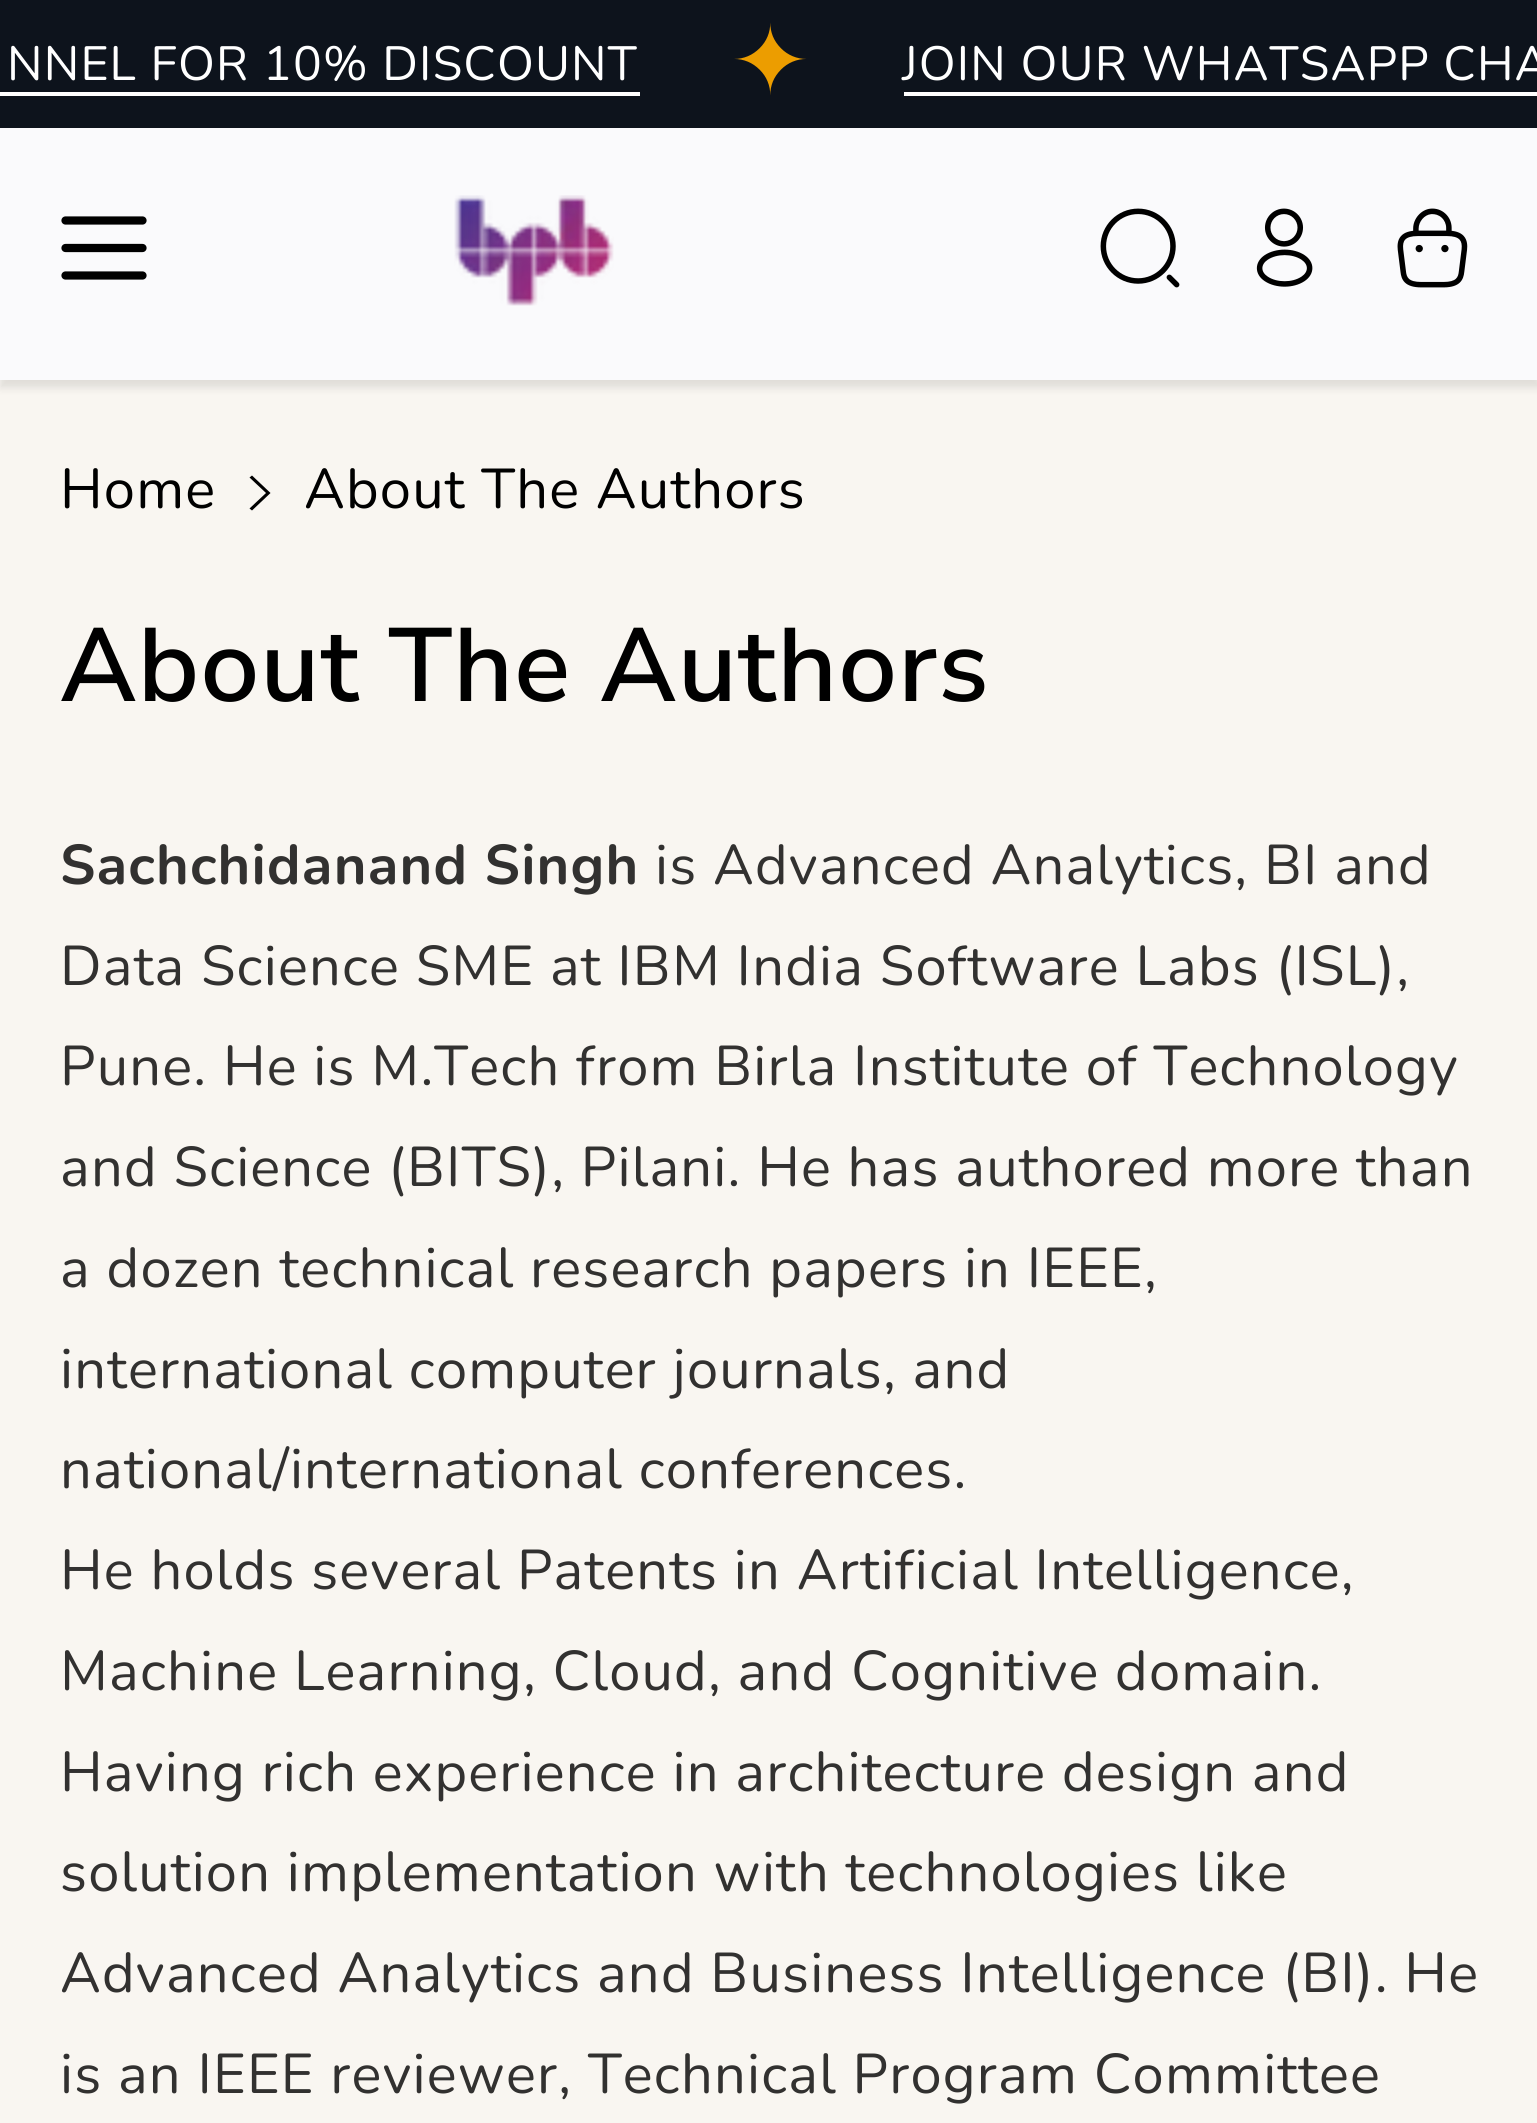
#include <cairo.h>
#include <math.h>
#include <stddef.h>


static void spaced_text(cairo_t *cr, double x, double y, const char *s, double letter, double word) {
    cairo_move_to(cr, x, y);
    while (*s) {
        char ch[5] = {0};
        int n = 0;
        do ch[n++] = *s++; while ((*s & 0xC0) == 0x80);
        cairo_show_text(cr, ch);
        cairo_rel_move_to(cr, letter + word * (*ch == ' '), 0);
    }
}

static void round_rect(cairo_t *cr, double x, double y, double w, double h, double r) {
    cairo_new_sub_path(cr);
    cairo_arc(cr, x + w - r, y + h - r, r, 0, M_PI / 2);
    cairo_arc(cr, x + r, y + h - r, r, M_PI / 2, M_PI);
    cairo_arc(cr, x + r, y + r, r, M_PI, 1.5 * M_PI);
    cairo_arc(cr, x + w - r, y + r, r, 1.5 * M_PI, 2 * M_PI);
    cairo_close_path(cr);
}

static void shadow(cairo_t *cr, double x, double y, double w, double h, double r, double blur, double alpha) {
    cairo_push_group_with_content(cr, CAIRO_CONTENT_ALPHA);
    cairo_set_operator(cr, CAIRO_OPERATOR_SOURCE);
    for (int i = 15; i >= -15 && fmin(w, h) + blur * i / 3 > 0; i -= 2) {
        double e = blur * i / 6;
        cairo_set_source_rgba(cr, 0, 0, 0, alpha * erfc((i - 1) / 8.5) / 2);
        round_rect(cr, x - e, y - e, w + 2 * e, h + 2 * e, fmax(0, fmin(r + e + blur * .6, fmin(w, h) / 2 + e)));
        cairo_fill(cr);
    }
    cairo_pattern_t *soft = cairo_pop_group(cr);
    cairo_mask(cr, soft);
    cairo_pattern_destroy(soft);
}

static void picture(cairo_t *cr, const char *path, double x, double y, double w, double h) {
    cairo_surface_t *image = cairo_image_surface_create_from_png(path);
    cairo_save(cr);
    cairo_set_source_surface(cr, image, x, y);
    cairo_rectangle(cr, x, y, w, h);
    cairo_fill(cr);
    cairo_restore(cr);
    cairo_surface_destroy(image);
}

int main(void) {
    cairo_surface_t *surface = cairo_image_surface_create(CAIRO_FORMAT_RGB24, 1537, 2123);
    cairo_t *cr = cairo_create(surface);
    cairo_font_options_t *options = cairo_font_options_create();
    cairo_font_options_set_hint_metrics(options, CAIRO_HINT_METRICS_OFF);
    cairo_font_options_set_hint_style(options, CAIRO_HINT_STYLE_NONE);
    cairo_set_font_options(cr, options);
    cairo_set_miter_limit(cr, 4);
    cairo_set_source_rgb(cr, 0.976, 0.961, 0.945);
    cairo_paint(cr);
    cairo_set_source_rgb(cr, 0.051, 0.075, 0.11);
    cairo_rectangle(cr, 0, 0, 1537, 128);
    cairo_fill(cr);
    cairo_select_font_face(cr, "Nunito", CAIRO_FONT_SLANT_NORMAL, CAIRO_FONT_WEIGHT_NORMAL);
    cairo_set_font_size(cr, 48);
    cairo_set_source_rgb(cr, 1, 1, 1);
    spaced_text(cr, 7, 80, "NNEL FOR 10% DISCOUNT", 1.2, 0);
    cairo_rectangle(cr, 0, 92, 640, 4);
    cairo_fill(cr);
    cairo_select_font_face(cr, "DejaVu Sans", CAIRO_FONT_SLANT_NORMAL, CAIRO_FONT_WEIGHT_NORMAL);
    cairo_set_font_size(cr, 96);
    cairo_set_source_rgb(cr, 0.922, 0.616, 0);
    spaced_text(cr, 730, 94, "✦", 1.2, 0);
    cairo_select_font_face(cr, "Nunito", CAIRO_FONT_SLANT_NORMAL, CAIRO_FONT_WEIGHT_NORMAL);
    cairo_set_font_size(cr, 48);
    cairo_set_source_rgb(cr, 1, 1, 1);
    spaced_text(cr, 902, 80, "JOIN OUR WHATSAPP CHA", 1.2, 0);
    cairo_rectangle(cr, 904, 92, 633, 4);
    cairo_fill(cr);
    cairo_set_source_rgb(cr, 0, 0, 0);
    shadow(cr, 0, 136, 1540, 252, 0, 4, 0.1);
    cairo_set_source_rgb(cr, 0.98, 0.98, 0.988);
    cairo_rectangle(cr, 0, 128, 1537, 252);
    cairo_fill(cr);
    cairo_new_path(cr);
    cairo_move_to(cr, 65.5, 275.5);
    cairo_line_to(cr, 142.5, 275.5);
    cairo_move_to(cr, 65.5, 248);
    cairo_line_to(cr, 142.5, 248);
    cairo_move_to(cr, 65.5, 220.5);
    cairo_line_to(cr, 142.5, 220.5);
    cairo_set_source_rgb(cr, 0, 0, 0);
    cairo_set_line_width(cr, 8.2);
    cairo_set_line_cap(cr, CAIRO_LINE_CAP_ROUND);
    cairo_set_line_join(cr, CAIRO_LINE_JOIN_ROUND);
    cairo_stroke(cr);
    picture(cr, "img1.png", 454, 195, 160, 111);
    picture(cr, "img2.png", 1100, 208, 80, 80);
    picture(cr, "img3.png", 1256, 208, 57, 79);
    picture(cr, "img4.png", 1397, 208, 71, 80);
    cairo_set_font_size(cr, 56);
    spaced_text(cr, 60, 508, "Home", 1.2, 0);
    cairo_new_path(cr);
    cairo_move_to(cr, 249.5, 508.5);
    cairo_line_to(cr, 252, 510.5);
    cairo_line_to(cr, 270.5, 493);
    cairo_line_to(cr, 252, 475.5);
    cairo_line_to(cr, 249.5, 477.5);
    cairo_line_to(cr, 266, 493);
    cairo_close_path(cr);
    cairo_fill(cr);
    spaced_text(cr, 304, 508, "About The Authors", 1.2, 0);
    cairo_select_font_face(cr, "Nunito Sans SemiBold", CAIRO_FONT_SLANT_NORMAL, CAIRO_FONT_WEIGHT_NORMAL);
    cairo_set_font_size(cr, 104);
    spaced_text(cr, 60, 701, "About The Authors", 1.2, 0);
    cairo_select_font_face(cr, "Nunito", CAIRO_FONT_SLANT_NORMAL, CAIRO_FONT_WEIGHT_BOLD);
    cairo_set_font_size(cr, 56);
    cairo_set_source_rgb(cr, 0.196, 0.192, 0.188);
    spaced_text(cr, 60, 884, "Sachchidanand Singh", 1.2, 0);
    cairo_select_font_face(cr, "Nunito", CAIRO_FONT_SLANT_NORMAL, CAIRO_FONT_WEIGHT_NORMAL);
    spaced_text(cr, 655, 884, "is Advanced Analytics, BI and", 1.2, 0);
    spaced_text(cr, 60, 985, "Data Science SME at IBM India Software Labs (ISL),", 1.2, 0);
    spaced_text(cr, 60, 1085, "Pune. He is M.Tech from Birla Institute of Technology", 1.2, 0);
    spaced_text(cr, 60, 1186, "and Science (BITS), Pilani. He has authored more than", 1.2, 0);
    spaced_text(cr, 60, 1287, "a dozen technical research papers in IEEE,", 1.2, 0);
    spaced_text(cr, 60, 1388, "international computer journals, and", 1.2, 0);
    spaced_text(cr, 60, 1488, "national/international conferences.", 1.2, 0);
    spaced_text(cr, 60, 1589, "He holds several Patents in Artificial Intelligence,", 1.2, 0);
    spaced_text(cr, 60, 1690, "Machine Learning, Cloud, and Cognitive domain.", 1.2, 0);
    spaced_text(cr, 60, 1791, "Having rich experience in architecture design and", 1.2, 0);
    spaced_text(cr, 60, 1891, "solution implementation with technologies like", 1.2, 0);
    spaced_text(cr, 60, 1992, "Advanced Analytics and Business Intelligence (BI). He", 1.2, 0);
    spaced_text(cr, 60, 2093, "is an IEEE reviewer, Technical Program Committee", 1.2, 0);
    cairo_surface_write_to_png(surface, "page.png");
    cairo_font_options_destroy(options);
    cairo_destroy(cr);
    cairo_surface_destroy(surface);
    return 0;
}
